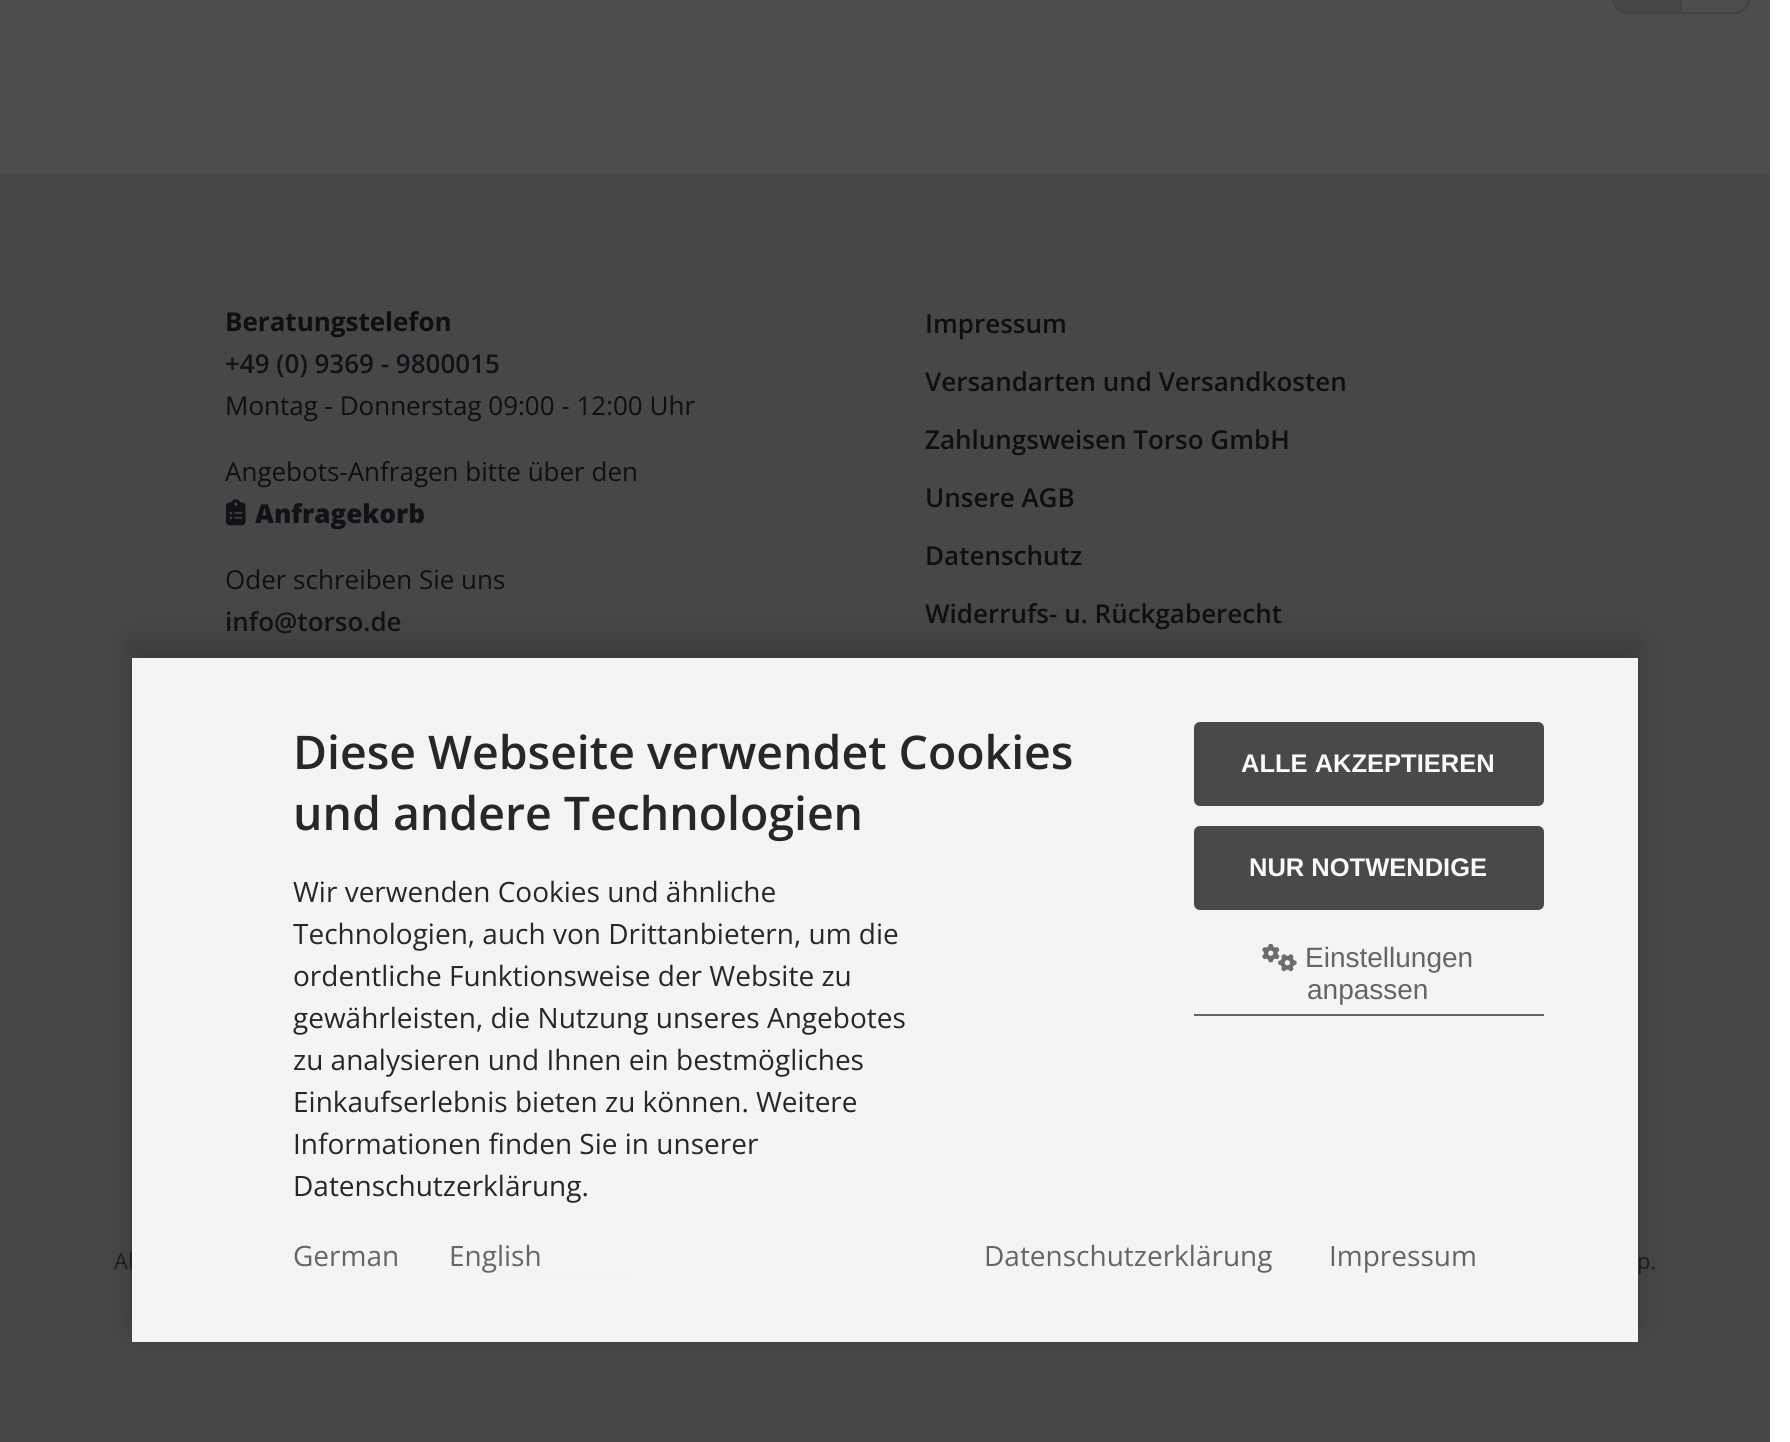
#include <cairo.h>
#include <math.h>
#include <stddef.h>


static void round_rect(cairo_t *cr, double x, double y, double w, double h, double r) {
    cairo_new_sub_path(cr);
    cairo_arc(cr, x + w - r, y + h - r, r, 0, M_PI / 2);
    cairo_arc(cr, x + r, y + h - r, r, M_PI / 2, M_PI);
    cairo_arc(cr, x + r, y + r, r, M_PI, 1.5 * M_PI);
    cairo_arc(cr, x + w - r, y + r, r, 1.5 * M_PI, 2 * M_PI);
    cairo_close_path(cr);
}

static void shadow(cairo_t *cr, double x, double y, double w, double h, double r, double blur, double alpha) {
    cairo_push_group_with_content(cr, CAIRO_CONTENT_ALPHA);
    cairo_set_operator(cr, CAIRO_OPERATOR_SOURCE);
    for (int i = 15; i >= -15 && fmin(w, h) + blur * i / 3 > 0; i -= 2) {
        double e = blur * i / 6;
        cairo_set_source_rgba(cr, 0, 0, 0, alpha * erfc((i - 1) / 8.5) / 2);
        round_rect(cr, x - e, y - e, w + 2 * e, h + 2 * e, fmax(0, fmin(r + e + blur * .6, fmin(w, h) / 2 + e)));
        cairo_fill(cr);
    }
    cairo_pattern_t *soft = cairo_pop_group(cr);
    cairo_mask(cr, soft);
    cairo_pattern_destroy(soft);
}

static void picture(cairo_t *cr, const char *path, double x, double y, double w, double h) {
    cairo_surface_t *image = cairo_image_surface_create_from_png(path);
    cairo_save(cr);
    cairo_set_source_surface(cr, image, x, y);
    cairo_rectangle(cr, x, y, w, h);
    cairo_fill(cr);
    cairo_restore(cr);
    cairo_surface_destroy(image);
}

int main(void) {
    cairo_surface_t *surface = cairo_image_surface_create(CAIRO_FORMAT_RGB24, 1790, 1442);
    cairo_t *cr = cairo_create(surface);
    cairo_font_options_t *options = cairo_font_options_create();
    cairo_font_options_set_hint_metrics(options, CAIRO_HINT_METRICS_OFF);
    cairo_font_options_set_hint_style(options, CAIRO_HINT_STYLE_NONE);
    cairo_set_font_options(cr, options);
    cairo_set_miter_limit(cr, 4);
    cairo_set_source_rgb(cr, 1, 1, 1);
    cairo_paint(cr);
    cairo_set_source_rgb(cr, 0.302, 0.302, 0.302);
    cairo_rectangle(cr, 0, 0, 1770, 174);
    cairo_fill(cr);
    round_rect(cr, 1613, -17, 136, 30, 15);
    cairo_set_source_rgb(cr, 0.255, 0.255, 0.255);
    cairo_stroke(cr);
    cairo_set_source_rgb(cr, 0.278, 0.278, 0.278);
    cairo_new_path(cr);
    cairo_move_to(cr, 1628, -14);
    cairo_line_to(cr, 1680, -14);
    cairo_line_to(cr, 1680, 12);
    cairo_line_to(cr, 1628, 12);
    cairo_curve_to(cr, 1620.5, 12, 1614, 5.5, 1614, -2);
    cairo_line_to(cr, 1614, 0);
    cairo_curve_to(cr, 1614, -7.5, 1620.5, -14, 1628, -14);
    cairo_close_path(cr);
    cairo_fill(cr);
    cairo_set_source_rgb(cr, 0.255, 0.255, 0.255);
    cairo_rectangle(cr, 1680, 0, 2, 12);
    cairo_fill(cr);
    cairo_set_source_rgb(cr, 0.278, 0.278, 0.278);
    cairo_rectangle(cr, 0, 174, 1770, 1268);
    cairo_fill(cr);
    cairo_select_font_face(cr, "Open Sans", CAIRO_FONT_SLANT_NORMAL, CAIRO_FONT_WEIGHT_BOLD);
    cairo_set_font_size(cr, 26);
    cairo_set_source_rgb(cr, 0.059, 0.059, 0.059);
    cairo_move_to(cr, 225, 331);
    cairo_show_text(cr, "Beratungstelefon");
    cairo_select_font_face(cr, "Open Sans SemiBold", CAIRO_FONT_SLANT_NORMAL, CAIRO_FONT_WEIGHT_NORMAL);
    cairo_set_source_rgb(cr, 0.067, 0.071, 0.09);
    cairo_move_to(cr, 225, 373);
    cairo_show_text(cr, "+49 (0) 9369 - 9800015");
    cairo_select_font_face(cr, "Open Sans", CAIRO_FONT_SLANT_NORMAL, CAIRO_FONT_WEIGHT_NORMAL);
    cairo_set_source_rgb(cr, 0.059, 0.059, 0.059);
    cairo_move_to(cr, 225, 415);
    cairo_show_text(cr, "Montag - Donnerstag 09:00 - 12:00 Uhr");
    cairo_move_to(cr, 225, 481);
    cairo_show_text(cr, "Angebots-Anfragen bitte über den");
    picture(cr, "img1.png", 226, 499, 20, 27);
    cairo_select_font_face(cr, "Open Sans ExtraBold", CAIRO_FONT_SLANT_NORMAL, CAIRO_FONT_WEIGHT_NORMAL);
    cairo_set_source_rgb(cr, 0.067, 0.071, 0.09);
    cairo_move_to(cr, 255, 523);
    cairo_show_text(cr, "Anfragekorb");
    cairo_select_font_face(cr, "Open Sans", CAIRO_FONT_SLANT_NORMAL, CAIRO_FONT_WEIGHT_NORMAL);
    cairo_set_source_rgb(cr, 0.059, 0.059, 0.059);
    cairo_move_to(cr, 225, 589);
    cairo_show_text(cr, "Oder schreiben Sie uns");
    cairo_select_font_face(cr, "Open Sans SemiBold", CAIRO_FONT_SLANT_NORMAL, CAIRO_FONT_WEIGHT_NORMAL);
    cairo_set_source_rgb(cr, 0.067, 0.071, 0.09);
    cairo_move_to(cr, 225, 631);
    cairo_show_text(cr, "info@torso.de");
    cairo_set_source_rgb(cr, 0.059, 0.059, 0.059);
    cairo_move_to(cr, 925, 333);
    cairo_show_text(cr, "Impressum");
    cairo_move_to(cr, 925, 391);
    cairo_show_text(cr, "Versandarten und Versandkosten");
    cairo_move_to(cr, 925, 449);
    cairo_show_text(cr, "Zahlungsweisen Torso GmbH");
    cairo_move_to(cr, 925, 507);
    cairo_show_text(cr, "Unsere AGB");
    cairo_move_to(cr, 925, 565);
    cairo_show_text(cr, "Datenschutz");
    cairo_move_to(cr, 925, 623);
    cairo_show_text(cr, "Widerrufs- u. Rückgaberecht");
    cairo_select_font_face(cr, "Open Sans", CAIRO_FONT_SLANT_NORMAL, CAIRO_FONT_WEIGHT_NORMAL);
    cairo_set_font_size(cr, 22);
    cairo_set_source_rgb(cr, 0.122, 0.122, 0.122);
    cairo_move_to(cr, 114, 1269);
    cairo_show_text(cr, "Al");
    cairo_rectangle(cr, 478, 1274, 154, 2);
    cairo_fill(cr);
    cairo_move_to(cr, 1637, 1269);
    cairo_show_text(cr, "p.");
    cairo_save(cr);
    cairo_set_fill_rule(cr, CAIRO_FILL_RULE_EVEN_ODD);
    cairo_new_path(cr);
    cairo_move_to(cr, 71, 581);
    cairo_line_to(cr, 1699, 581);
    cairo_line_to(cr, 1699, 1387);
    cairo_line_to(cr, 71, 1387);
    cairo_close_path(cr);
    cairo_move_to(cr, 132, 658);
    cairo_line_to(cr, 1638, 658);
    cairo_line_to(cr, 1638, 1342);
    cairo_line_to(cr, 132, 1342);
    cairo_close_path(cr);
    cairo_clip(cr);
    cairo_set_source_rgb(cr, 0, 0, 0);
    shadow(cr, 132, 642, 1506, 684, 0, 20, 0.19);
    cairo_restore(cr);
    cairo_set_source_rgba(cr, 0.976, 0.976, 0.976, 0.97);
    cairo_rectangle(cr, 132, 658, 1506, 684);
    cairo_fill(cr);
    cairo_select_font_face(cr, "Open Sans SemiBold", CAIRO_FONT_SLANT_NORMAL, CAIRO_FONT_WEIGHT_NORMAL);
    cairo_set_font_size(cr, 46.4);
    cairo_set_source_rgb(cr, 0.153, 0.153, 0.153);
    cairo_move_to(cr, 293, 769);
    cairo_show_text(cr, "Diese Webseite verwendet Cookies");
    cairo_move_to(cr, 293, 830);
    cairo_show_text(cr, "und andere Technologien");
    cairo_select_font_face(cr, "Open Sans", CAIRO_FONT_SLANT_NORMAL, CAIRO_FONT_WEIGHT_NORMAL);
    cairo_set_font_size(cr, 28);
    cairo_move_to(cr, 293, 902);
    cairo_show_text(cr, "Wir verwenden Cookies und ähnliche");
    cairo_move_to(cr, 293, 944);
    cairo_show_text(cr, "Technologien, auch von Drittanbietern, um die");
    cairo_move_to(cr, 293, 986);
    cairo_show_text(cr, "ordentliche Funktionsweise der Website zu");
    cairo_move_to(cr, 293, 1028);
    cairo_show_text(cr, "gewährleisten, die Nutzung unseres Angebotes");
    cairo_move_to(cr, 293, 1070);
    cairo_show_text(cr, "zu analysieren und Ihnen ein bestmögliches");
    cairo_move_to(cr, 293, 1112);
    cairo_show_text(cr, "Einkaufserlebnis bieten zu können. Weitere");
    cairo_move_to(cr, 293, 1154);
    cairo_show_text(cr, "Informationen finden Sie in unserer");
    cairo_move_to(cr, 293, 1196);
    cairo_show_text(cr, "Datenschutzerklärung.");
    cairo_set_source_rgb(cr, 0.286, 0.286, 0.286);
    round_rect(cr, 1194, 722, 350, 84, 6);
    cairo_fill(cr);
    cairo_select_font_face(cr, "Liberation Sans", CAIRO_FONT_SLANT_NORMAL, CAIRO_FONT_WEIGHT_BOLD);
    cairo_set_font_size(cr, 25.5);
    cairo_set_source_rgb(cr, 0.976, 0.976, 0.976);
    cairo_move_to(cr, 1241, 772);
    cairo_show_text(cr, "ALLE AKZEPTIEREN");
    cairo_set_source_rgb(cr, 0.286, 0.286, 0.286);
    round_rect(cr, 1194, 826, 350, 84, 6);
    cairo_fill(cr);
    cairo_set_source_rgb(cr, 0.976, 0.976, 0.976);
    cairo_move_to(cr, 1249, 876);
    cairo_show_text(cr, "NUR NOTWENDIGE");
    cairo_set_source_rgb(cr, 0.396, 0.396, 0.396);
    cairo_rectangle(cr, 1194, 1014, 350, 2);
    cairo_fill(cr);
    picture(cr, "img2.png", 1262, 943, 35, 29);
    cairo_select_font_face(cr, "Liberation Sans", CAIRO_FONT_SLANT_NORMAL, CAIRO_FONT_WEIGHT_NORMAL);
    cairo_set_font_size(cr, 28);
    cairo_move_to(cr, 1305, 967);
    cairo_show_text(cr, "Einstellungen");
    cairo_move_to(cr, 1307, 999);
    cairo_show_text(cr, "anpassen");
    cairo_select_font_face(cr, "Open Sans", CAIRO_FONT_SLANT_NORMAL, CAIRO_FONT_WEIGHT_NORMAL);
    cairo_move_to(cr, 293, 1266);
    cairo_show_text(cr, "German");
    cairo_move_to(cr, 449, 1266);
    cairo_show_text(cr, "English");
    cairo_move_to(cr, 984, 1266);
    cairo_show_text(cr, "Datenschutzerklärung");
    cairo_move_to(cr, 1329, 1266);
    cairo_show_text(cr, "Impressum");
    cairo_surface_write_to_png(surface, "page.png");
    cairo_font_options_destroy(options);
    cairo_destroy(cr);
    cairo_surface_destroy(surface);
    return 0;
}
